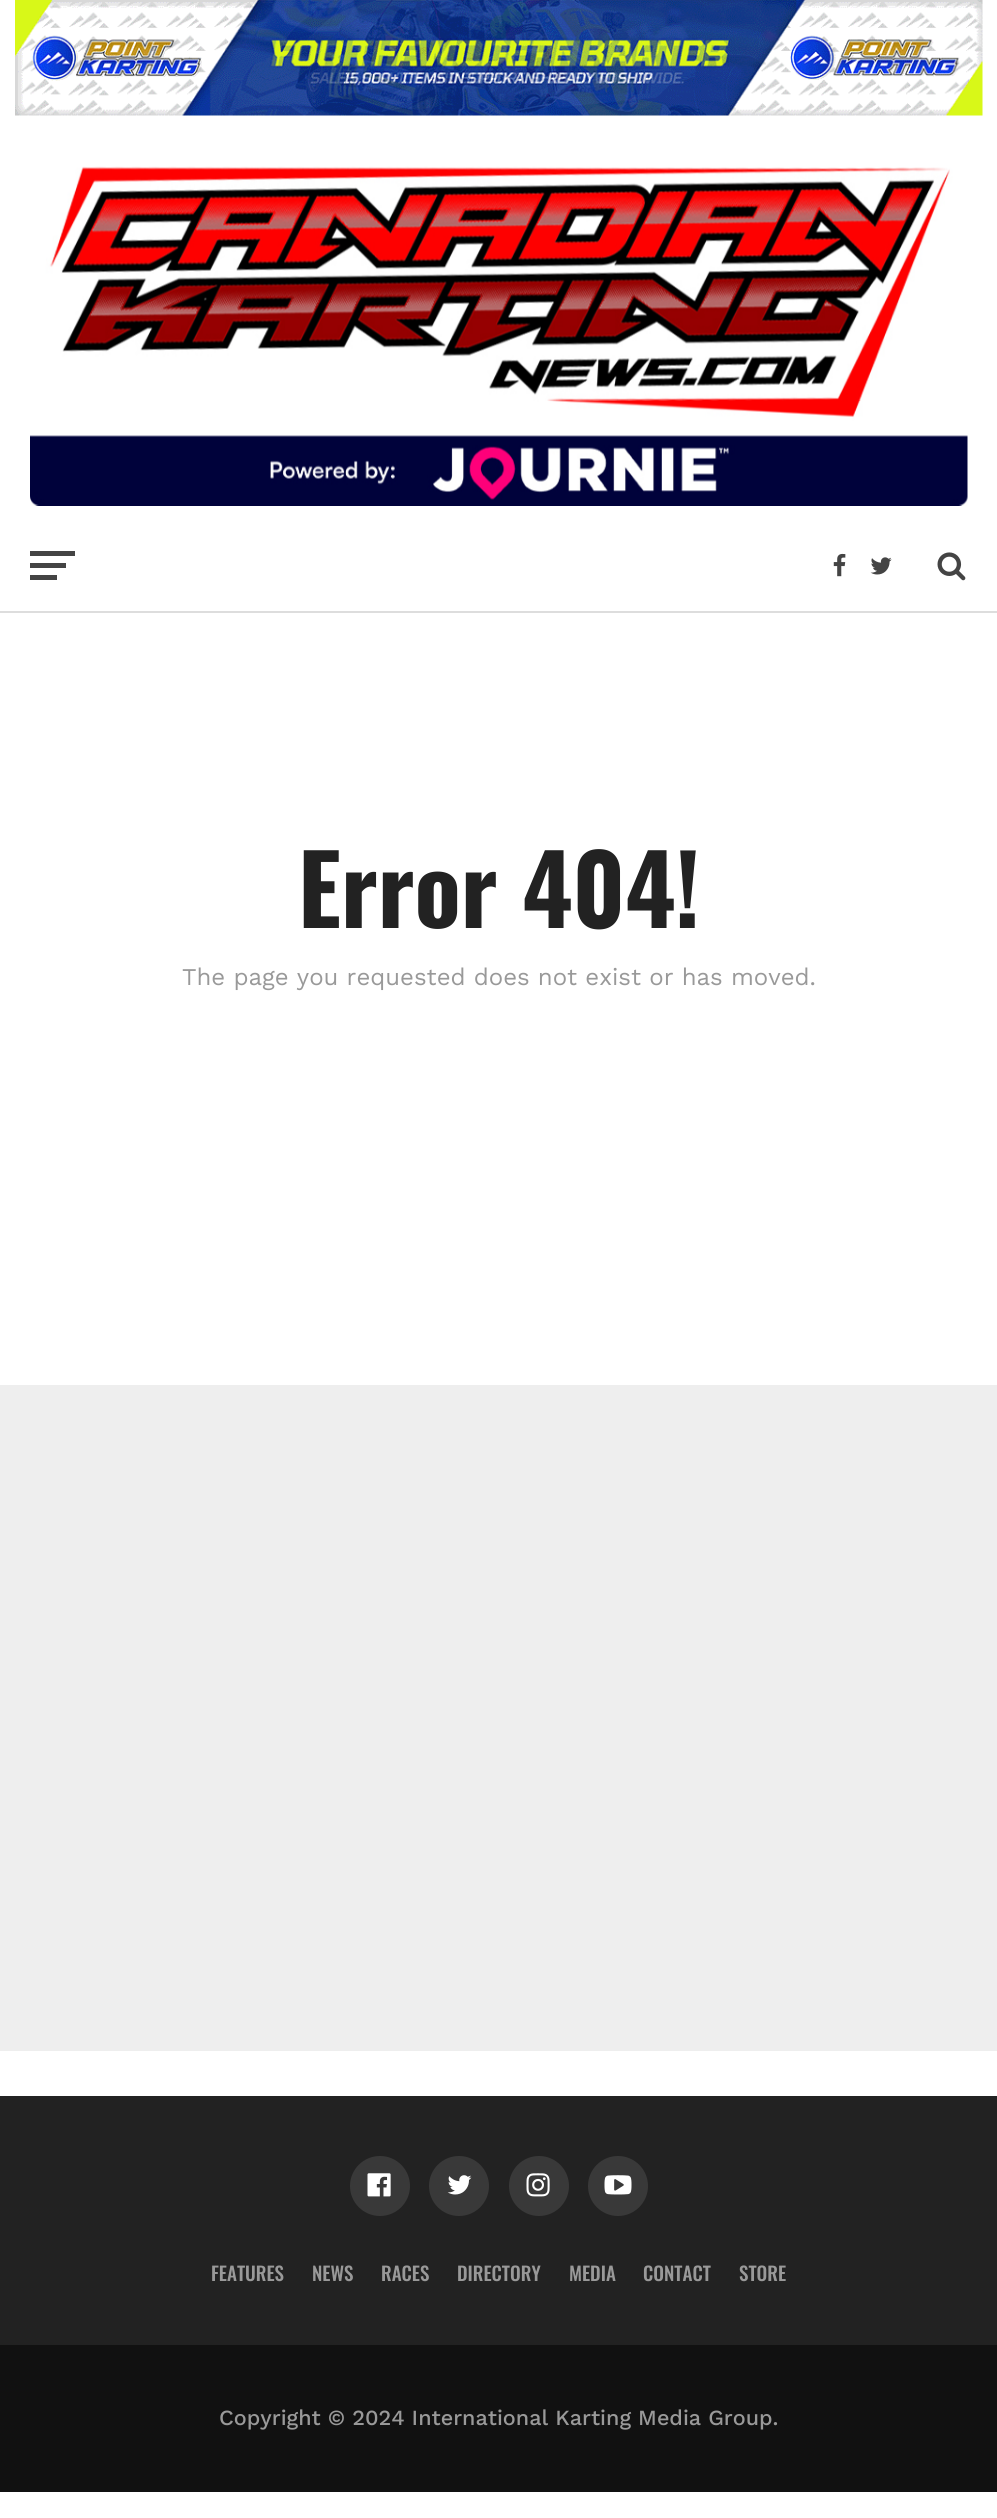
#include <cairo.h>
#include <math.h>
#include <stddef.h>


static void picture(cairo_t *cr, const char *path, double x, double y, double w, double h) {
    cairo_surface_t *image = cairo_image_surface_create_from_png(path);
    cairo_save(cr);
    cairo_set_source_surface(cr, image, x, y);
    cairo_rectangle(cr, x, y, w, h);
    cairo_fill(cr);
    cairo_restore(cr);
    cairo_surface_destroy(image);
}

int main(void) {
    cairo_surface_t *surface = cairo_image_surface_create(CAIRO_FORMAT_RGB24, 997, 2518);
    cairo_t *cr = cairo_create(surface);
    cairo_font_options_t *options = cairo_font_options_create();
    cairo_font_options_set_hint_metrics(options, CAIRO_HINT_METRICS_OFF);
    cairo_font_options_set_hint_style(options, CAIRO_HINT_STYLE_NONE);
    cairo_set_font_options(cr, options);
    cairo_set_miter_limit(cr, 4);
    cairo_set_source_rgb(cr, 1, 1, 1);
    cairo_paint(cr);
    picture(cr, "img1.png", 15, 0, 968, 116);
    picture(cr, "img2.png", 30, 166, 938, 340);
    cairo_set_source_rgb(cr, 0.267, 0.267, 0.267);
    cairo_rectangle(cr, 30, 551, 45, 5);
    cairo_fill(cr);
    cairo_rectangle(cr, 30, 563, 36, 5);
    cairo_fill(cr);
    cairo_rectangle(cr, 30, 575, 27, 5);
    cairo_fill(cr);
    picture(cr, "img3.png", 833, 553, 13, 24);
    picture(cr, "img4.png", 870, 557, 22, 18);
    picture(cr, "img5.png", 937, 552, 29, 29);
    cairo_set_source_rgb(cr, 0.867, 0.867, 0.867);
    cairo_rectangle(cr, 0, 611, 997, 2);
    cairo_fill(cr);
    cairo_select_font_face(cr, "Oswald", CAIRO_FONT_SLANT_NORMAL, CAIRO_FONT_WEIGHT_BOLD);
    cairo_set_font_size(cr, 96);
    cairo_set_source_rgb(cr, 0.133, 0.133, 0.133);
    cairo_move_to(cr, 298, 928);
    cairo_show_text(cr, "Error 404!");
    cairo_select_font_face(cr, "Work Sans", CAIRO_FONT_SLANT_NORMAL, CAIRO_FONT_WEIGHT_NORMAL);
    cairo_set_font_size(cr, 24);
    cairo_set_source_rgb(cr, 0.6, 0.6, 0.6);
    cairo_move_to(cr, 182, 985);
    cairo_show_text(cr, "The page you requested does not exist or has moved.");
    cairo_set_source_rgb(cr, 0.933, 0.933, 0.933);
    cairo_rectangle(cr, 0, 1385, 997, 666);
    cairo_fill(cr);
    cairo_set_source_rgb(cr, 0.133, 0.133, 0.133);
    cairo_rectangle(cr, 0, 2096, 997, 249);
    cairo_fill(cr);
    cairo_set_source_rgb(cr, 0.224, 0.224, 0.224);
    cairo_arc(cr, 380, 2186, 30, 0, 2 * M_PI);
    cairo_fill(cr);
    picture(cr, "img6.png", 367, 2173, 24, 24);
    cairo_arc(cr, 459, 2186, 30, 0, 2 * M_PI);
    cairo_fill(cr);
    picture(cr, "img7.png", 447, 2175, 25, 20);
    cairo_arc(cr, 539, 2186, 30, 0, 2 * M_PI);
    cairo_fill(cr);
    picture(cr, "img8.png", 526, 2173, 24, 24);
    cairo_arc(cr, 618, 2186, 30, 0, 2 * M_PI);
    cairo_fill(cr);
    picture(cr, "img9.png", 604, 2175, 28, 20);
    cairo_select_font_face(cr, "Oswald Medium", CAIRO_FONT_SLANT_NORMAL, CAIRO_FONT_WEIGHT_NORMAL);
    cairo_set_font_size(cr, 19);
    cairo_set_source_rgb(cr, 0.6, 0.6, 0.6);
    cairo_move_to(cr, 211, 2281);
    cairo_show_text(cr, "FEATURES");
    cairo_move_to(cr, 312, 2281);
    cairo_show_text(cr, "NEWS");
    cairo_move_to(cr, 381, 2281);
    cairo_show_text(cr, "RACES");
    cairo_move_to(cr, 457, 2281);
    cairo_show_text(cr, "DIRECTORY");
    cairo_move_to(cr, 569, 2281);
    cairo_show_text(cr, "MEDIA");
    cairo_move_to(cr, 643, 2281);
    cairo_show_text(cr, "CONTACT");
    cairo_move_to(cr, 739, 2281);
    cairo_show_text(cr, "STORE");
    cairo_set_source_rgb(cr, 0.067, 0.067, 0.067);
    cairo_rectangle(cr, 0, 2345, 997, 147);
    cairo_fill(cr);
    cairo_select_font_face(cr, "Work Sans Medium", CAIRO_FONT_SLANT_NORMAL, CAIRO_FONT_WEIGHT_NORMAL);
    cairo_set_font_size(cr, 21.6);
    cairo_set_source_rgb(cr, 0.6, 0.6, 0.6);
    cairo_move_to(cr, 219, 2425);
    cairo_show_text(cr, "Copyright © 2024 International Karting Media Group.");
    cairo_surface_write_to_png(surface, "page.png");
    cairo_font_options_destroy(options);
    cairo_destroy(cr);
    cairo_surface_destroy(surface);
    return 0;
}
